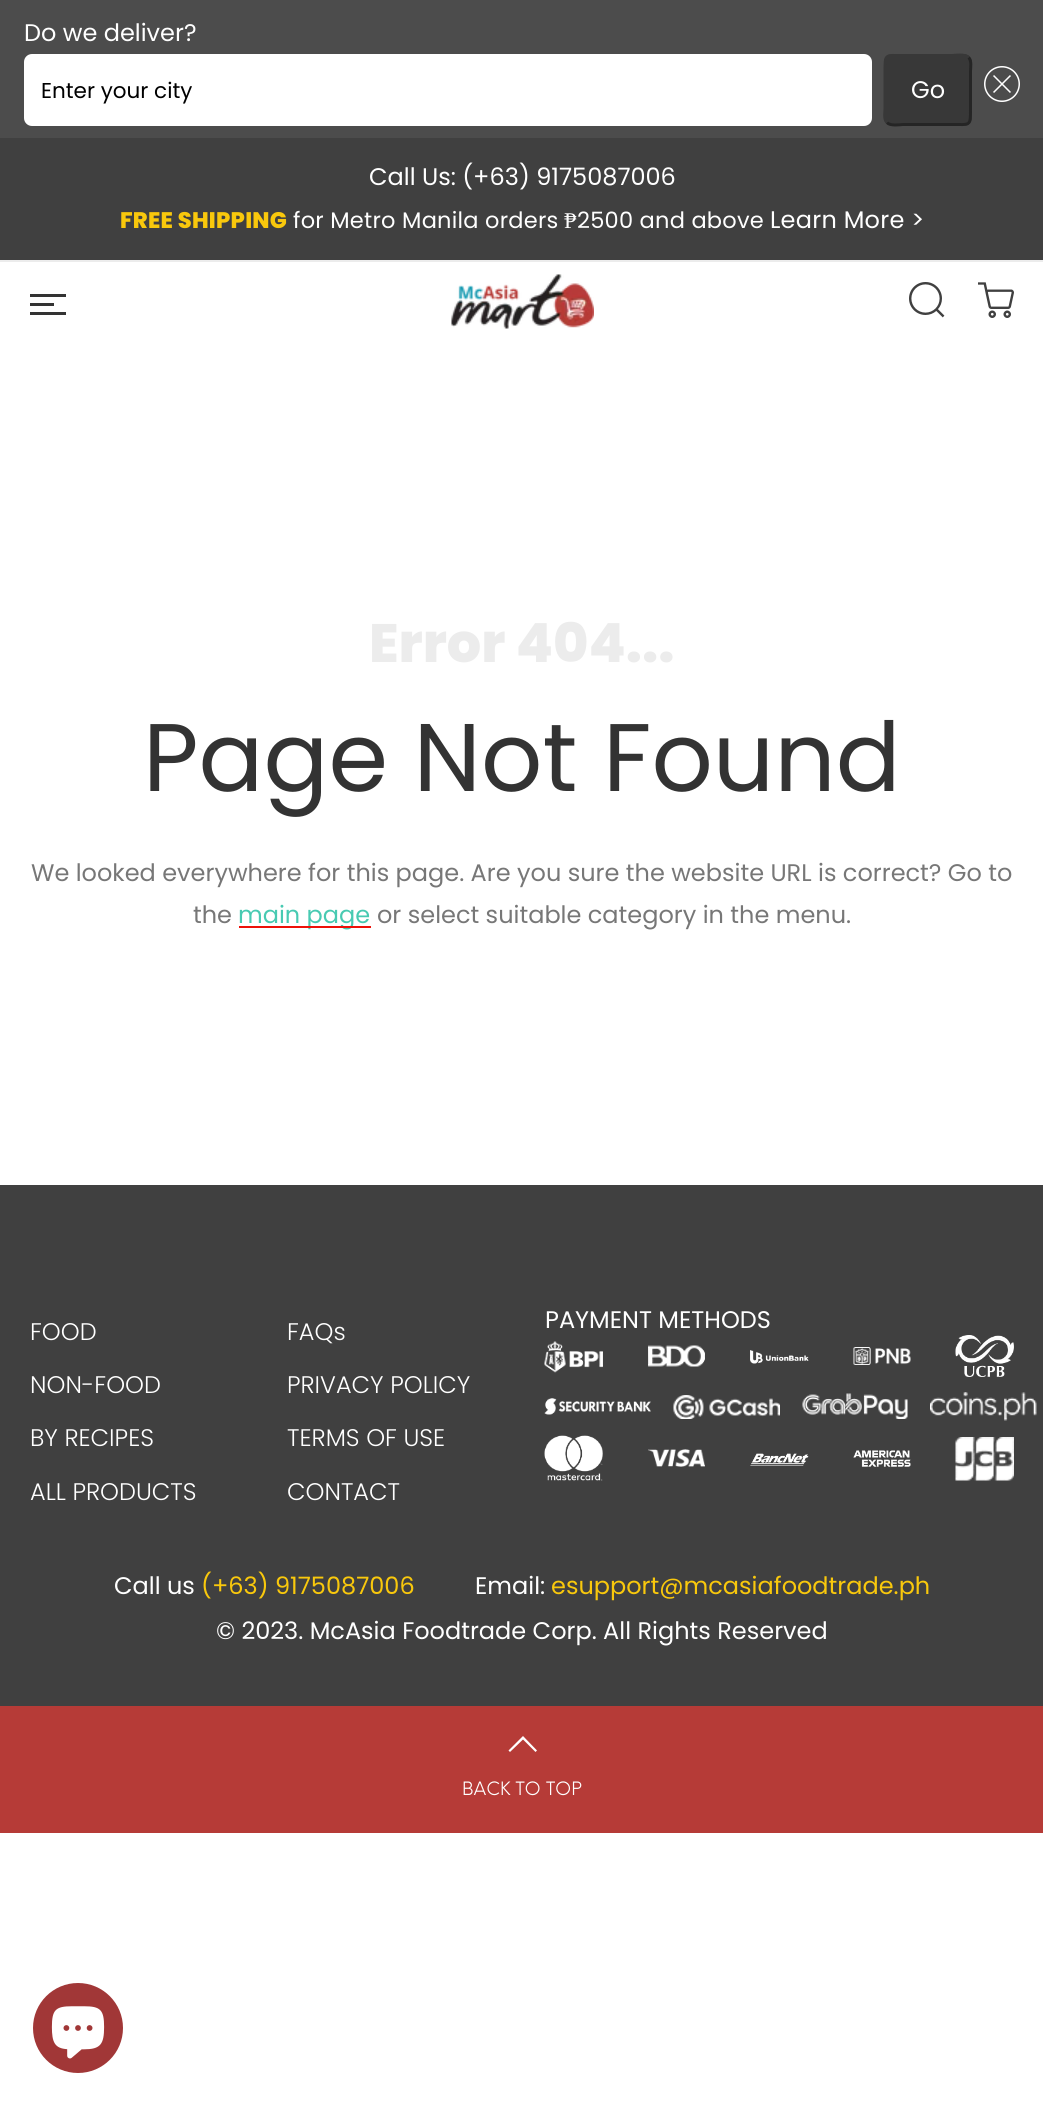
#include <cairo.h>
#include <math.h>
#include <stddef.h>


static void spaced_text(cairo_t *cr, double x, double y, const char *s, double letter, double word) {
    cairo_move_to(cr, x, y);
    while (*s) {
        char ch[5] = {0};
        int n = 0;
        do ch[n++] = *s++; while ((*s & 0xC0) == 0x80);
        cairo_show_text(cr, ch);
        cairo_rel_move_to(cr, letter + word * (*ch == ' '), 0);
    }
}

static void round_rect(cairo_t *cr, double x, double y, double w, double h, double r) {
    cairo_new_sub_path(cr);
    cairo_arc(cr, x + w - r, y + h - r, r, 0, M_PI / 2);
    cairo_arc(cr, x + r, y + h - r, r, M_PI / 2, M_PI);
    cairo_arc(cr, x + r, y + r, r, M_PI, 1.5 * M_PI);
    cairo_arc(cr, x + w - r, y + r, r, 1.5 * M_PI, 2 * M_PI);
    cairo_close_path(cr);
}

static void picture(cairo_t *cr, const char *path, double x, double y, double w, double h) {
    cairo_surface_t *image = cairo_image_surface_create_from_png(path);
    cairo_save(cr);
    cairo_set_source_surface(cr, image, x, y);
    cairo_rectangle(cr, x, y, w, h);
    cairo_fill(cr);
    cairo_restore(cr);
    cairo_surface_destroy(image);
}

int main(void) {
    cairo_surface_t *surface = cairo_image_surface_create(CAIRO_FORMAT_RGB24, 1043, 2104);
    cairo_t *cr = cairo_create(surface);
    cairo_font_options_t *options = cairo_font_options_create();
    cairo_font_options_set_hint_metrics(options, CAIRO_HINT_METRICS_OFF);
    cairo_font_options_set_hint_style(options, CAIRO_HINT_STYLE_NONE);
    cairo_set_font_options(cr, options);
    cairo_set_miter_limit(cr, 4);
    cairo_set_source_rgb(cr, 1, 1, 1);
    cairo_paint(cr);
    cairo_set_source_rgba(cr, 0, 0, 0, 0.7);
    cairo_rectangle(cr, 0, 0, 1043, 138);
    cairo_fill(cr);
    cairo_select_font_face(cr, "Poppins", CAIRO_FONT_SLANT_NORMAL, CAIRO_FONT_WEIGHT_NORMAL);
    cairo_set_font_size(cr, 24);
    cairo_set_source_rgb(cr, 1, 1, 1);
    cairo_move_to(cr, 24, 41);
    cairo_show_text(cr, "Do we deliver?");
    round_rect(cr, 25, 55, 846, 70, 7);
    cairo_fill_preserve(cr);
    cairo_stroke(cr);
    cairo_set_font_size(cr, 21.5);
    cairo_set_source_rgb(cr, 0, 0, 0);
    cairo_move_to(cr, 41, 98);
    cairo_show_text(cr, "Enter your city");
    cairo_set_source_rgb(cr, 0.22, 0.22, 0.22);
    round_rect(cr, 884, 54, 88, 72, 8);
    cairo_fill(cr);
    cairo_new_path(cr);
    cairo_move_to(cr, 968.5, 57.5);
    cairo_curve_to(cr, 972, 60.5, 970.5, 68, 970.5, 71);
    cairo_line_to(cr, 970.5, 109);
    cairo_curve_to(cr, 970.5, 126.5, 970.5, 124.5, 952, 124.5);
    cairo_line_to(cr, 903, 124.5);
    cairo_curve_to(cr, 901, 124.5, 890.5, 126.5, 887, 122.5);
    cairo_set_source_rgb(cr, 0.145, 0.145, 0.145);
    cairo_set_line_width(cr, 3);
    cairo_stroke(cr);
    cairo_new_path(cr);
    cairo_move_to(cr, 887, 122.5);
    cairo_curve_to(cr, 883.5, 119.5, 885, 112, 885, 109);
    cairo_line_to(cr, 885, 71);
    cairo_curve_to(cr, 885, 53.5, 885, 55.5, 903, 55.5);
    cairo_line_to(cr, 952, 55.5);
    cairo_curve_to(cr, 954.5, 55.5, 965, 53.5, 968.5, 57.5);
    cairo_set_source_rgb(cr, 0.22, 0.22, 0.22);
    cairo_stroke(cr);
    cairo_set_font_size(cr, 24);
    cairo_set_source_rgb(cr, 1, 1, 1);
    cairo_move_to(cr, 911, 98);
    cairo_show_text(cr, "Go");
    picture(cr, "img1.png", 984, 66, 36, 36);
    cairo_set_source_rgb(cr, 0.251, 0.251, 0.251);
    cairo_rectangle(cr, 0, 138, 1043, 122);
    cairo_fill(cr);
    cairo_set_source_rgb(cr, 0.922, 0.922, 0.922);
    cairo_rectangle(cr, 0, 260, 1043, 2);
    cairo_fill(cr);
    cairo_set_source_rgb(cr, 1, 1, 1);
    cairo_move_to(cr, 369, 185);
    cairo_show_text(cr, "Call Us: (+63) 9175087006");
    cairo_select_font_face(cr, "Poppins ExtraBold", CAIRO_FONT_SLANT_NORMAL, CAIRO_FONT_WEIGHT_NORMAL);
    cairo_set_font_size(cr, 22.5);
    cairo_set_source_rgb(cr, 0.976, 0.784, 0.047);
    spaced_text(cr, 120, 228, "FREE SHIPPING", 0.25, 0);
    cairo_select_font_face(cr, "Poppins", CAIRO_FONT_SLANT_NORMAL, CAIRO_FONT_WEIGHT_NORMAL);
    cairo_set_source_rgb(cr, 1, 1, 1);
    spaced_text(cr, 293, 228, "for Metro Manila orders", 0.25, 0);
    cairo_select_font_face(cr, "Liberation Serif", CAIRO_FONT_SLANT_NORMAL, CAIRO_FONT_WEIGHT_NORMAL);
    spaced_text(cr, 564, 228, "₱", 0.25, 0);
    cairo_select_font_face(cr, "Poppins", CAIRO_FONT_SLANT_NORMAL, CAIRO_FONT_WEIGHT_NORMAL);
    spaced_text(cr, 577, 228, "2500 and above", 0.25, 0);
    cairo_set_font_size(cr, 24);
    spaced_text(cr, 770, 228, "Learn More >", 0.25, 0);
    cairo_set_source_rgb(cr, 0.2, 0.2, 0.2);
    cairo_rectangle(cr, 30, 294, 36, 3);
    cairo_fill(cr);
    cairo_rectangle(cr, 30, 303, 24, 3);
    cairo_fill(cr);
    cairo_rectangle(cr, 30, 312, 36, 3);
    cairo_fill(cr);
    picture(cr, "img2.png", 451, 274, 143, 55);
    picture(cr, "img3.png", 909, 282, 36, 36);
    picture(cr, "img4.png", 978, 282, 36, 36);
    cairo_select_font_face(cr, "Poppins ExtraBold", CAIRO_FONT_SLANT_NORMAL, CAIRO_FONT_WEIGHT_NORMAL);
    cairo_set_font_size(cr, 54);
    cairo_set_source_rgb(cr, 0.922, 0.922, 0.922);
    cairo_move_to(cr, 369, 662);
    cairo_show_text(cr, "Error 404...");
    cairo_select_font_face(cr, "Poppins", CAIRO_FONT_SLANT_NORMAL, CAIRO_FONT_WEIGHT_NORMAL);
    cairo_set_font_size(cr, 96);
    cairo_set_source_rgb(cr, 0.2, 0.2, 0.2);
    cairo_move_to(cr, 143, 791);
    cairo_show_text(cr, "Page Not Found");
    cairo_set_font_size(cr, 24);
    cairo_set_source_rgb(cr, 0.467, 0.467, 0.467);
    cairo_move_to(cr, 31, 881);
    cairo_show_text(cr, "We looked everywhere for this page. Are you sure the website URL is correct? Go to");
    cairo_move_to(cr, 193, 923);
    cairo_show_text(cr, "the");
    cairo_set_source_rgb(cr, 0.282, 0.792, 0.698);
    cairo_move_to(cr, 238, 923);
    cairo_show_text(cr, "main page");
    cairo_set_source_rgb(cr, 0.929, 0.067, 0.039);
    cairo_rectangle(cr, 239, 926, 132, 2);
    cairo_fill(cr);
    cairo_set_source_rgb(cr, 0.467, 0.467, 0.467);
    cairo_move_to(cr, 377, 923);
    cairo_show_text(cr, "or select suitable category in the menu.");
    cairo_set_source_rgb(cr, 0.251, 0.251, 0.251);
    cairo_rectangle(cr, 0, 1185, 1043, 521);
    cairo_fill(cr);
    cairo_set_source_rgb(cr, 1, 1, 1);
    cairo_move_to(cr, 545, 1328);
    cairo_show_text(cr, "PAYMENT METHODS");
    picture(cr, "img5.png", 544, 1341, 59, 32);
    picture(cr, "img6.png", 648, 1345, 57, 22);
    picture(cr, "img7.png", 750, 1350, 59, 14);
    picture(cr, "img8.png", 853, 1347, 58, 18);
    picture(cr, "img9.png", 955, 1335, 59, 42);
    picture(cr, "img10.png", 544, 1398, 107, 17);
    picture(cr, "img11.png", 673, 1395, 107, 24);
    picture(cr, "img12.png", 802, 1393, 106, 26);
    picture(cr, "img13.png", 930, 1392, 107, 29);
    picture(cr, "img14.png", 544, 1435, 59, 46);
    picture(cr, "img15.png", 648, 1449, 57, 18);
    picture(cr, "img16.png", 750, 1453, 59, 13);
    picture(cr, "img17.png", 853, 1450, 58, 17);
    picture(cr, "img18.png", 955, 1437, 59, 44);
    cairo_select_font_face(cr, "Poppins Light", CAIRO_FONT_SLANT_NORMAL, CAIRO_FONT_WEIGHT_NORMAL);
    cairo_move_to(cr, 30, 1340);
    cairo_show_text(cr, "FOOD");
    cairo_move_to(cr, 30, 1393);
    cairo_show_text(cr, "NON-FOOD");
    cairo_move_to(cr, 30, 1446);
    cairo_show_text(cr, "BY RECIPES");
    cairo_move_to(cr, 30, 1500);
    cairo_show_text(cr, "ALL PRODUCTS");
    cairo_move_to(cr, 287, 1340);
    cairo_show_text(cr, "FAQs");
    cairo_move_to(cr, 287, 1393);
    cairo_show_text(cr, "PRIVACY POLICY");
    cairo_move_to(cr, 287, 1446);
    cairo_show_text(cr, "TERMS OF USE");
    cairo_move_to(cr, 287, 1500);
    cairo_show_text(cr, "CONTACT");
    cairo_select_font_face(cr, "Poppins", CAIRO_FONT_SLANT_NORMAL, CAIRO_FONT_WEIGHT_NORMAL);
    cairo_move_to(cr, 114, 1594);
    cairo_show_text(cr, "Call us");
    cairo_set_source_rgb(cr, 0.976, 0.784, 0.047);
    cairo_move_to(cr, 201, 1594);
    cairo_show_text(cr, "(+63) 9175087006");
    cairo_set_source_rgb(cr, 1, 1, 1);
    cairo_move_to(cr, 475, 1594);
    cairo_show_text(cr, "Email:");
    cairo_set_source_rgb(cr, 0.976, 0.784, 0.047);
    cairo_move_to(cr, 551, 1594);
    cairo_show_text(cr, "esupport@mcasiafoodtrade.ph");
    cairo_set_source_rgb(cr, 1, 1, 1);
    cairo_move_to(cr, 216, 1639);
    cairo_show_text(cr, "© 2023. McAsia Foodtrade Corp. All Rights Reserved");
    cairo_set_source_rgb(cr, 0.714, 0.231, 0.216);
    cairo_rectangle(cr, 0, 1706, 1043, 127);
    cairo_fill(cr);
    cairo_set_source_rgb(cr, 1, 1, 1);
    cairo_new_path(cr);
    cairo_move_to(cr, 535.5, 1752);
    cairo_line_to(cr, 523, 1739.5);
    cairo_line_to(cr, 510, 1752);
    cairo_line_to(cr, 508.5, 1750.5);
    cairo_line_to(cr, 523, 1736);
    cairo_line_to(cr, 537, 1750.5);
    cairo_close_path(cr);
    cairo_fill(cr);
    cairo_select_font_face(cr, "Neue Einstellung", CAIRO_FONT_SLANT_NORMAL, CAIRO_FONT_WEIGHT_NORMAL);
    cairo_set_font_size(cr, 18);
    cairo_move_to(cr, 462, 1795);
    cairo_show_text(cr, "BACK TO TOP");
    cairo_set_source_rgb(cr, 0.631, 0.216, 0.216);
    cairo_new_path(cr);
    cairo_arc(cr, 78, 2028, 45, 0, 2 * M_PI);
    cairo_fill(cr);
    picture(cr, "img19.png", 51, 2006, 54, 53);
    cairo_surface_write_to_png(surface, "page.png");
    cairo_font_options_destroy(options);
    cairo_destroy(cr);
    cairo_surface_destroy(surface);
    return 0;
}
